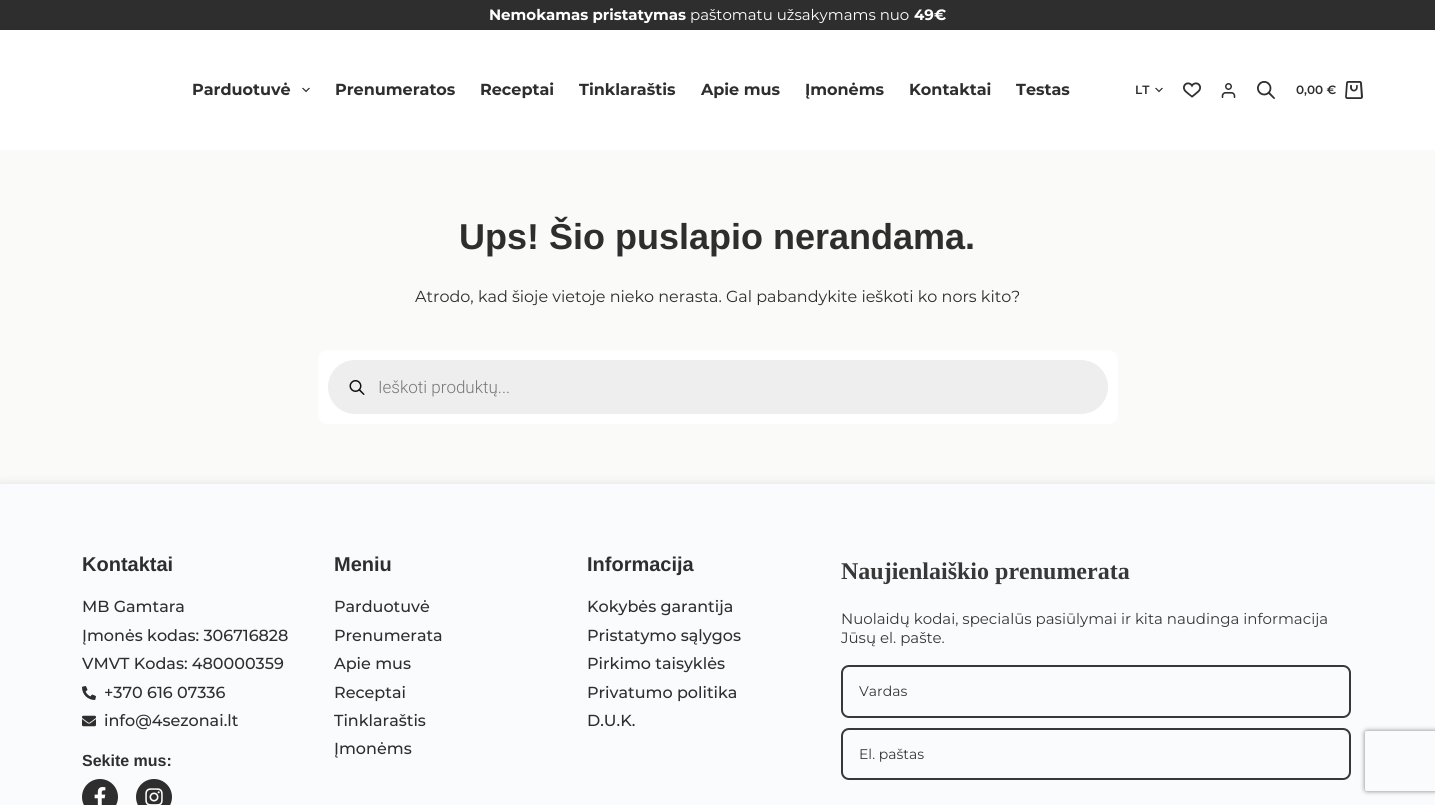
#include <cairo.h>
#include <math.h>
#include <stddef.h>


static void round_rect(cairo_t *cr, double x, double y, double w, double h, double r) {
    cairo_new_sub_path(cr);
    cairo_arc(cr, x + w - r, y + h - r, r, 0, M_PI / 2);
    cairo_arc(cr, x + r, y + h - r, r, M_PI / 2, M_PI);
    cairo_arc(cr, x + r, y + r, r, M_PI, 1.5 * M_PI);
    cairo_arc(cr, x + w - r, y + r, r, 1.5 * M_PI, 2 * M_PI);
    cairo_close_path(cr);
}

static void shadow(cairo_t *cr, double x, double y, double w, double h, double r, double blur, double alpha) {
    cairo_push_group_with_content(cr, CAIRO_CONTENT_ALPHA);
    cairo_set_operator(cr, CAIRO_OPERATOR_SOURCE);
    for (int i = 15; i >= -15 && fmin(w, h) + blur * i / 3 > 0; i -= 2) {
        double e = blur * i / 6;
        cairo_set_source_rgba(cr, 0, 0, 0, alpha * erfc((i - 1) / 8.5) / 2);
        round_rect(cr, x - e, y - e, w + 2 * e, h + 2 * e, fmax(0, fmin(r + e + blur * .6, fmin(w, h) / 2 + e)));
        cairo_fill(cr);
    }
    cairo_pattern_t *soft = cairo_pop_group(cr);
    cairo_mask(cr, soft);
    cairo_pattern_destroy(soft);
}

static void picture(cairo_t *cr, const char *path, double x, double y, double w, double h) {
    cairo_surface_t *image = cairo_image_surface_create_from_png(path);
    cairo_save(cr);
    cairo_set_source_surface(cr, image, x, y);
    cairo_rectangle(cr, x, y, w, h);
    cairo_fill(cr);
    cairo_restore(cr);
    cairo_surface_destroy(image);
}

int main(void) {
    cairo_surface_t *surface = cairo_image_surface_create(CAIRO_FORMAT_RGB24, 1435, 805);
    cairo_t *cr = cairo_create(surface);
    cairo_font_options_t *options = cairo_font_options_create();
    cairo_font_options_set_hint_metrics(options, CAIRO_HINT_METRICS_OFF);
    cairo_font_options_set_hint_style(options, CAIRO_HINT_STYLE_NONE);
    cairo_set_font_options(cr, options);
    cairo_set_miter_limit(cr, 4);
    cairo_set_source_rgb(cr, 0.98, 0.98, 0.976);
    cairo_paint(cr);
    cairo_set_source_rgb(cr, 0.18, 0.18, 0.18);
    cairo_rectangle(cr, 0, 0, 1435, 30);
    cairo_fill(cr);
    cairo_select_font_face(cr, "Montserrat", CAIRO_FONT_SLANT_NORMAL, CAIRO_FONT_WEIGHT_BOLD);
    cairo_set_font_size(cr, 15);
    cairo_set_source_rgb(cr, 1, 1, 1);
    cairo_move_to(cr, 489, 20);
    cairo_show_text(cr, "Nemokamas pristatymas");
    cairo_select_font_face(cr, "Montserrat", CAIRO_FONT_SLANT_NORMAL, CAIRO_FONT_WEIGHT_NORMAL);
    cairo_move_to(cr, 690, 20);
    cairo_show_text(cr, "paštomatu užsakymams nuo");
    cairo_select_font_face(cr, "Montserrat", CAIRO_FONT_SLANT_NORMAL, CAIRO_FONT_WEIGHT_BOLD);
    cairo_move_to(cr, 914, 20);
    cairo_show_text(cr, "49€");
    cairo_rectangle(cr, 0, 30, 1435, 120);
    cairo_fill(cr);
    cairo_set_font_size(cr, 16);
    cairo_set_source_rgb(cr, 0.18, 0.18, 0.18);
    cairo_move_to(cr, 192, 95);
    cairo_show_text(cr, "Parduotuvė");
    picture(cr, "img1.png", 302, 87, 8, 6);
    cairo_move_to(cr, 335, 95);
    cairo_show_text(cr, "Prenumeratos");
    cairo_move_to(cr, 480, 95);
    cairo_show_text(cr, "Receptai");
    cairo_move_to(cr, 579, 95);
    cairo_show_text(cr, "Tinklaraštis");
    cairo_move_to(cr, 701, 95);
    cairo_show_text(cr, "Apie mus");
    cairo_move_to(cr, 805, 95);
    cairo_show_text(cr, "Įmonėms");
    cairo_move_to(cr, 909, 95);
    cairo_show_text(cr, "Kontaktai");
    cairo_move_to(cr, 1016, 95);
    cairo_show_text(cr, "Testas");
    cairo_select_font_face(cr, "Montserrat SemiBold", CAIRO_FONT_SLANT_NORMAL, CAIRO_FONT_WEIGHT_NORMAL);
    cairo_set_font_size(cr, 12);
    cairo_move_to(cr, 1135, 94);
    cairo_show_text(cr, "LT");
    picture(cr, "img1.png", 1155, 87, 8, 6);
    picture(cr, "img2.png", 1183, 82, 18, 16);
    picture(cr, "img3.png", 1221, 83, 15, 15);
    picture(cr, "img4.png", 1257, 81, 18, 18);
    cairo_move_to(cr, 1296, 94);
    cairo_show_text(cr, "0,00 €");
    picture(cr, "img5.png", 1345, 81, 18, 18);
    cairo_select_font_face(cr, "Liberation Sans", CAIRO_FONT_SLANT_NORMAL, CAIRO_FONT_WEIGHT_BOLD);
    cairo_set_font_size(cr, 36);
    cairo_move_to(cr, 459, 249);
    cairo_show_text(cr, "Ups! Šio puslapio nerandama.");
    cairo_select_font_face(cr, "Montserrat", CAIRO_FONT_SLANT_NORMAL, CAIRO_FONT_WEIGHT_NORMAL);
    cairo_set_font_size(cr, 16);
    cairo_move_to(cr, 415, 302);
    cairo_show_text(cr, "Atrodo, kad šioje vietoje nieko nerasta. Gal pabandykite ieškoti ko nors kito?");
    cairo_set_source_rgb(cr, 1, 1, 1);
    round_rect(cr, 318, 350, 800, 74, 10);
    cairo_fill(cr);
    cairo_set_source_rgb(cr, 0.933, 0.933, 0.933);
    round_rect(cr, 328, 360, 780, 54, 27);
    cairo_fill(cr);
    picture(cr, "img6.png", 349, 380, 16, 15);
    cairo_select_font_face(cr, "Roboto Light", CAIRO_FONT_SLANT_NORMAL, CAIRO_FONT_WEIGHT_NORMAL);
    cairo_set_font_size(cr, 17);
    cairo_set_source_rgb(cr, 0.467, 0.467, 0.467);
    cairo_move_to(cr, 378, 393);
    cairo_show_text(cr, "Ieškoti produktų...");
    cairo_set_source_rgb(cr, 0, 0, 0);
    shadow(cr, 0, 484, 1435, 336, 0, 5, 0.1);
    cairo_set_source_rgb(cr, 0.98, 0.984, 0.988);
    cairo_rectangle(cr, 0, 484, 1435, 321);
    cairo_fill(cr);
    cairo_select_font_face(cr, "Liberation Sans", CAIRO_FONT_SLANT_NORMAL, CAIRO_FONT_WEIGHT_BOLD);
    cairo_set_font_size(cr, 20);
    cairo_set_source_rgb(cr, 0.18, 0.18, 0.18);
    cairo_move_to(cr, 82, 571);
    cairo_show_text(cr, "Kontaktai");
    cairo_select_font_face(cr, "Montserrat Medium", CAIRO_FONT_SLANT_NORMAL, CAIRO_FONT_WEIGHT_NORMAL);
    cairo_set_font_size(cr, 16);
    cairo_move_to(cr, 82, 612);
    cairo_show_text(cr, "MB Gamtara");
    cairo_move_to(cr, 82, 641);
    cairo_show_text(cr, "Įmonės kodas: 306716828");
    cairo_move_to(cr, 82, 669);
    cairo_show_text(cr, "VMVT Kodas: 480000359");
    picture(cr, "img7.png", 82, 686, 14, 14);
    cairo_move_to(cr, 104, 698);
    cairo_show_text(cr, "+370 616 07336");
    picture(cr, "img8.png", 82, 715, 14, 12);
    cairo_move_to(cr, 104, 726);
    cairo_show_text(cr, "info@4sezonai.lt");
    cairo_select_font_face(cr, "Liberation Sans", CAIRO_FONT_SLANT_NORMAL, CAIRO_FONT_WEIGHT_BOLD);
    cairo_move_to(cr, 82, 766);
    cairo_show_text(cr, "Sekite mus:");
    cairo_new_path(cr);
    cairo_arc(cr, 100, 797, 18, 0, 2 * M_PI);
    cairo_fill(cr);
    picture(cr, "img9.png", 94, 787, 12, 18);
    cairo_arc(cr, 154, 797, 18, 0, 2 * M_PI);
    cairo_fill(cr);
    picture(cr, "img10.png", 145, 788, 18, 17);
    cairo_set_font_size(cr, 20);
    cairo_move_to(cr, 334, 571);
    cairo_show_text(cr, "Meniu");
    cairo_select_font_face(cr, "Montserrat Medium", CAIRO_FONT_SLANT_NORMAL, CAIRO_FONT_WEIGHT_NORMAL);
    cairo_set_font_size(cr, 16);
    cairo_move_to(cr, 334, 612);
    cairo_show_text(cr, "Parduotuvė");
    cairo_move_to(cr, 334, 641);
    cairo_show_text(cr, "Prenumerata");
    cairo_move_to(cr, 334, 669);
    cairo_show_text(cr, "Apie mus");
    cairo_move_to(cr, 334, 698);
    cairo_show_text(cr, "Receptai");
    cairo_move_to(cr, 334, 726);
    cairo_show_text(cr, "Tinklaraštis");
    cairo_move_to(cr, 334, 754);
    cairo_show_text(cr, "Įmonėms");
    cairo_select_font_face(cr, "Liberation Sans", CAIRO_FONT_SLANT_NORMAL, CAIRO_FONT_WEIGHT_BOLD);
    cairo_set_font_size(cr, 20);
    cairo_move_to(cr, 587, 571);
    cairo_show_text(cr, "Informacija");
    cairo_select_font_face(cr, "Montserrat Medium", CAIRO_FONT_SLANT_NORMAL, CAIRO_FONT_WEIGHT_NORMAL);
    cairo_set_font_size(cr, 16);
    cairo_move_to(cr, 587, 612);
    cairo_show_text(cr, "Kokybės garantija");
    cairo_move_to(cr, 587, 641);
    cairo_show_text(cr, "Pristatymo sąlygos");
    cairo_move_to(cr, 587, 669);
    cairo_show_text(cr, "Pirkimo taisyklės");
    cairo_move_to(cr, 587, 698);
    cairo_show_text(cr, "Privatumo politika");
    cairo_move_to(cr, 587, 726);
    cairo_show_text(cr, "D.U.K.");
    cairo_select_font_face(cr, "Liberation Serif", CAIRO_FONT_SLANT_NORMAL, CAIRO_FONT_WEIGHT_BOLD);
    cairo_set_font_size(cr, 24);
    cairo_set_source_rgb(cr, 0.22, 0.22, 0.22);
    cairo_move_to(cr, 841, 579);
    cairo_show_text(cr, "Naujienlaiškio prenumerata");
    cairo_select_font_face(cr, "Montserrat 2", CAIRO_FONT_SLANT_NORMAL, CAIRO_FONT_WEIGHT_NORMAL);
    cairo_set_font_size(cr, 15);
    cairo_move_to(cr, 841, 624);
    cairo_show_text(cr, "Nuolaidų kodai, specialūs pasiūlymai ir kita naudinga informacija");
    cairo_move_to(cr, 841, 643);
    cairo_show_text(cr, "Jūsų el. pašte.");
    round_rect(cr, 842, 666, 508, 51, 7);
    cairo_stroke(cr);
    cairo_set_font_size(cr, 14);
    cairo_move_to(cr, 859, 696);
    cairo_show_text(cr, "Vardas");
    round_rect(cr, 842, 729, 508, 50, 7);
    cairo_stroke(cr);
    cairo_move_to(cr, 859, 759);
    cairo_show_text(cr, "El. paštas");
    cairo_save(cr);
    cairo_set_fill_rule(cr, CAIRO_FILL_RULE_EVEN_ODD);
    cairo_new_path(cr);
    cairo_move_to(cr, 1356, 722);
    cairo_line_to(cr, 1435, 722);
    cairo_line_to(cr, 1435, 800);
    cairo_line_to(cr, 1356, 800);
    cairo_close_path(cr);
    cairo_move_to(cr, 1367, 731);
    cairo_line_to(cr, 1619, 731);
    cairo_curve_to(cr, 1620, 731, 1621, 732, 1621, 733);
    cairo_line_to(cr, 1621, 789);
    cairo_curve_to(cr, 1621, 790, 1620, 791, 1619, 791);
    cairo_line_to(cr, 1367, 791);
    cairo_curve_to(cr, 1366, 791, 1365, 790, 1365, 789);
    cairo_line_to(cr, 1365, 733);
    cairo_curve_to(cr, 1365, 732, 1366, 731, 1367, 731);
    cairo_close_path(cr);
    cairo_clip(cr);
    cairo_set_source_rgb(cr, 0.502, 0.502, 0.502);
    shadow(cr, 1365, 731, 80, 60, 2, 2.5, 1);
    cairo_restore(cr);
    cairo_surface_write_to_png(surface, "page.png");
    cairo_font_options_destroy(options);
    cairo_destroy(cr);
    cairo_surface_destroy(surface);
    return 0;
}
